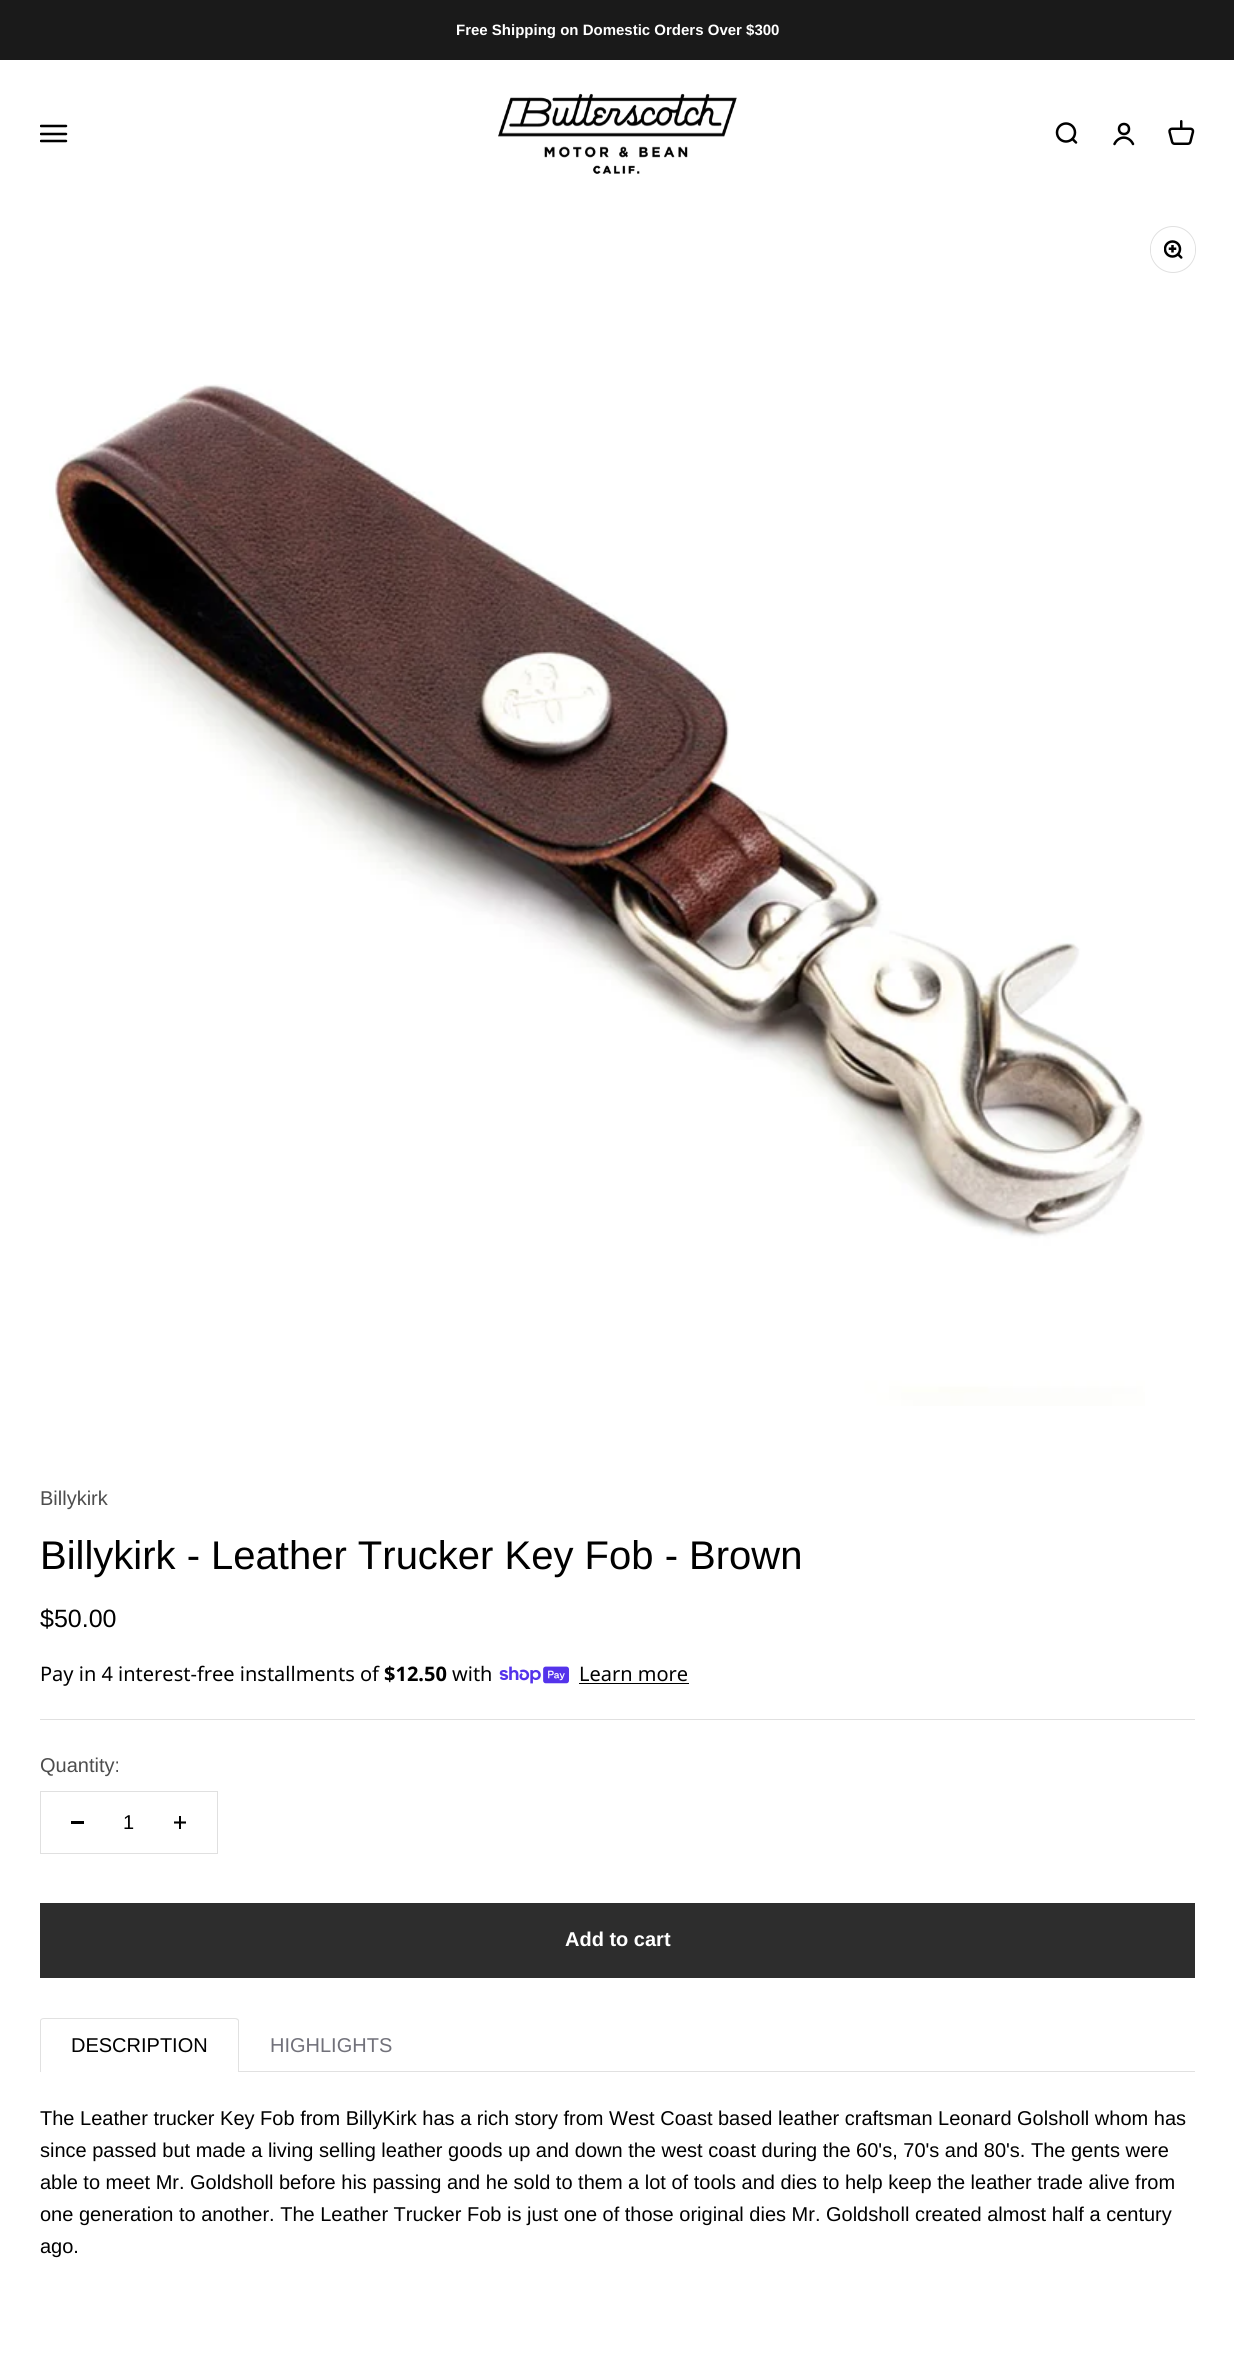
#include <cairo.h>
#include <math.h>
#include <stddef.h>


static void round_rect(cairo_t *cr, double x, double y, double w, double h, double r) {
    cairo_new_sub_path(cr);
    cairo_arc(cr, x + w - r, y + h - r, r, 0, M_PI / 2);
    cairo_arc(cr, x + r, y + h - r, r, M_PI / 2, M_PI);
    cairo_arc(cr, x + r, y + r, r, M_PI, 1.5 * M_PI);
    cairo_arc(cr, x + w - r, y + r, r, 1.5 * M_PI, 2 * M_PI);
    cairo_close_path(cr);
}

static void picture(cairo_t *cr, const char *path, double x, double y, double w, double h) {
    cairo_surface_t *image = cairo_image_surface_create_from_png(path);
    cairo_save(cr);
    cairo_set_source_surface(cr, image, x, y);
    cairo_rectangle(cr, x, y, w, h);
    cairo_fill(cr);
    cairo_restore(cr);
    cairo_surface_destroy(image);
}

int main(void) {
    cairo_surface_t *surface = cairo_image_surface_create(CAIRO_FORMAT_RGB24, 1234, 2355);
    cairo_t *cr = cairo_create(surface);
    cairo_font_options_t *options = cairo_font_options_create();
    cairo_font_options_set_hint_metrics(options, CAIRO_HINT_METRICS_OFF);
    cairo_font_options_set_hint_style(options, CAIRO_HINT_STYLE_NONE);
    cairo_set_font_options(cr, options);
    cairo_set_miter_limit(cr, 4);
    cairo_set_source_rgb(cr, 1, 1, 1);
    cairo_paint(cr);
    cairo_set_source_rgb(cr, 0.102, 0.102, 0.102);
    cairo_rectangle(cr, 0, 0, 1234, 60);
    cairo_fill(cr);
    cairo_select_font_face(cr, "Liberation Sans", CAIRO_FONT_SLANT_NORMAL, CAIRO_FONT_WEIGHT_BOLD);
    cairo_set_font_size(cr, 15);
    cairo_set_source_rgb(cr, 1, 1, 1);
    cairo_move_to(cr, 456, 35);
    cairo_show_text(cr, "Free Shipping on Domestic Orders Over $300");
    cairo_save(cr);
    cairo_rectangle(cr, 40, 120, 28, 28);
    cairo_clip(cr);
    cairo_new_path(cr);
    cairo_move_to(cr, 41, 126);
    cairo_line_to(cr, 66, 126);
    cairo_move_to(cr, 41, 134);
    cairo_line_to(cr, 66, 134);
    cairo_move_to(cr, 41, 141);
    cairo_line_to(cr, 66, 141);
    cairo_set_source_rgb(cr, 0, 0, 0);
    cairo_set_line_width(cr, 2.5);
    cairo_set_line_cap(cr, CAIRO_LINE_CAP_ROUND);
    cairo_stroke(cr);
    cairo_restore(cr);
    picture(cr, "img1.png", 498, 93, 239, 81);
    cairo_arc(cr, 1066, 132.5, 9, 0, 2 * M_PI);
    cairo_set_source_rgb(cr, 0, 0, 0);
    cairo_set_line_width(cr, 2.5);
    cairo_stroke(cr);
    cairo_new_path(cr);
    cairo_move_to(cr, 1072.5, 139);
    cairo_line_to(cr, 1076, 142.5);
    cairo_set_line_cap(cr, CAIRO_LINE_CAP_ROUND);
    cairo_set_line_join(cr, CAIRO_LINE_JOIN_ROUND);
    cairo_stroke(cr);
    cairo_arc(cr, 1124, 129, 5, 0, 2 * M_PI);
    cairo_set_line_cap(cr, CAIRO_LINE_CAP_BUTT);
    cairo_set_line_join(cr, CAIRO_LINE_JOIN_MITER);
    cairo_stroke(cr);
    cairo_new_path(cr);
    cairo_move_to(cr, 1114.5, 144);
    cairo_curve_to(cr, 1118.5, 135.5, 1129, 135.5, 1133, 144);
    cairo_set_line_cap(cr, CAIRO_LINE_CAP_ROUND);
    cairo_stroke(cr);
    picture(cr, "img2.png", 1168, 120, 27, 25);
    round_rect(cr, 1150.5, 226.5, 45, 46, 22.5);
    cairo_set_source_rgb(cr, 0.878, 0.878, 0.878);
    cairo_set_line_width(cr, 1);
    cairo_set_line_cap(cr, CAIRO_LINE_CAP_BUTT);
    cairo_stroke(cr);
    cairo_set_source_rgb(cr, 1, 1, 1);
    round_rect(cr, 1151, 228, 44, 43, 21.5);
    cairo_fill(cr);
    picture(cr, "img3.png", 1164, 240, 19, 19);
    picture(cr, "img4.png", 49, 384, 1096, 1022);
    cairo_select_font_face(cr, "Liberation Sans", CAIRO_FONT_SLANT_NORMAL, CAIRO_FONT_WEIGHT_NORMAL);
    cairo_set_font_size(cr, 20);
    cairo_set_source_rgb(cr, 0.302, 0.302, 0.302);
    cairo_move_to(cr, 40, 1505);
    cairo_show_text(cr, "Billykirk");
    cairo_set_font_size(cr, 40);
    cairo_set_source_rgb(cr, 0, 0, 0);
    cairo_move_to(cr, 40, 1569);
    cairo_show_text(cr, "Billykirk - Leather Trucker Key Fob - Brown");
    cairo_set_font_size(cr, 25);
    cairo_move_to(cr, 40, 1627);
    cairo_show_text(cr, "$50.00");
    cairo_select_font_face(cr, "Noto Sans", CAIRO_FONT_SLANT_NORMAL, CAIRO_FONT_WEIGHT_NORMAL);
    cairo_set_font_size(cr, 20);
    cairo_move_to(cr, 40, 1681);
    cairo_show_text(cr, "Pay in 4 interest-free installments of");
    cairo_select_font_face(cr, "Noto Sans", CAIRO_FONT_SLANT_NORMAL, CAIRO_FONT_WEIGHT_BOLD);
    cairo_move_to(cr, 384, 1681);
    cairo_show_text(cr, "$12.50");
    cairo_select_font_face(cr, "Noto Sans", CAIRO_FONT_SLANT_NORMAL, CAIRO_FONT_WEIGHT_NORMAL);
    cairo_move_to(cr, 452, 1681);
    cairo_show_text(cr, "with");
    picture(cr, "img5.png", 499, 1666, 70, 18);
    cairo_move_to(cr, 579, 1681);
    cairo_show_text(cr, "Learn more");
    cairo_rectangle(cr, 579, 1683, 110, 1);
    cairo_fill(cr);
    cairo_set_source_rgb(cr, 0.878, 0.878, 0.878);
    cairo_rectangle(cr, 40, 1719, 1155, 1);
    cairo_fill(cr);
    cairo_select_font_face(cr, "Liberation Sans", CAIRO_FONT_SLANT_NORMAL, CAIRO_FONT_WEIGHT_NORMAL);
    cairo_set_source_rgb(cr, 0.302, 0.302, 0.302);
    cairo_move_to(cr, 40, 1772);
    cairo_show_text(cr, "Quantity:");
    cairo_rectangle(cr, 40.5, 1791.5, 177, 62);
    cairo_set_source_rgb(cr, 0.878, 0.878, 0.878);
    cairo_stroke(cr);
    cairo_set_source_rgb(cr, 0, 0, 0);
    cairo_rectangle(cr, 71, 1821, 13, 3);
    cairo_fill(cr);
    cairo_move_to(cr, 123, 1829);
    cairo_show_text(cr, "1");
    cairo_rectangle(cr, 179, 1816, 2, 13);
    cairo_fill(cr);
    cairo_new_path(cr);
    cairo_move_to(cr, 174, 1822.5);
    cairo_line_to(cr, 186, 1822.5);
    cairo_set_line_width(cr, 2.1);
    cairo_stroke(cr);
    cairo_set_source_rgb(cr, 0.176, 0.176, 0.176);
    cairo_rectangle(cr, 40, 1903, 1155, 75);
    cairo_fill(cr);
    cairo_select_font_face(cr, "Liberation Sans", CAIRO_FONT_SLANT_NORMAL, CAIRO_FONT_WEIGHT_BOLD);
    cairo_set_source_rgb(cr, 1, 1, 1);
    cairo_move_to(cr, 565, 1946);
    cairo_show_text(cr, "Add to cart");
    cairo_set_source_rgb(cr, 0.882, 0.882, 0.882);
    cairo_set_fill_rule(cr, CAIRO_FILL_RULE_EVEN_ODD);
    cairo_new_path(cr);
    cairo_move_to(cr, 44, 2018);
    cairo_line_to(cr, 235, 2018);
    cairo_curve_to(cr, 237, 2018, 239, 2019, 239, 2021);
    cairo_line_to(cr, 239, 2072);
    cairo_line_to(cr, 40, 2072);
    cairo_line_to(cr, 40, 2021);
    cairo_curve_to(cr, 40, 2019, 42, 2018, 44, 2018);
    cairo_close_path(cr);
    cairo_move_to(cr, 44, 2019);
    cairo_line_to(cr, 235, 2019);
    cairo_curve_to(cr, 236, 2019, 238, 2020, 238, 2021);
    cairo_line_to(cr, 238, 2072);
    cairo_line_to(cr, 41, 2072);
    cairo_line_to(cr, 41, 2021);
    cairo_curve_to(cr, 41, 2020, 42, 2019, 44, 2019);
    cairo_close_path(cr);
    cairo_fill(cr);
    cairo_select_font_face(cr, "Liberation Sans", CAIRO_FONT_SLANT_NORMAL, CAIRO_FONT_WEIGHT_NORMAL);
    cairo_set_source_rgb(cr, 0, 0, 0);
    cairo_move_to(cr, 71, 2052);
    cairo_show_text(cr, "DESCRIPTION");
    cairo_set_source_rgb(cr, 0.443, 0.443, 0.478);
    cairo_move_to(cr, 270, 2052);
    cairo_show_text(cr, "HIGHLIGHTS");
    cairo_set_source_rgb(cr, 0.882, 0.882, 0.882);
    cairo_rectangle(cr, 239, 2071, 956, 1);
    cairo_fill(cr);
    cairo_set_source_rgb(cr, 0, 0, 0);
    cairo_move_to(cr, 40, 2125);
    cairo_show_text(cr, "The Leather trucker Key Fob from BillyKirk has a rich story from West Coast based leather craftsman Leonard Golsholl whom has");
    cairo_move_to(cr, 40, 2157);
    cairo_show_text(cr, "since passed but made a living selling leather goods up and down the west coast during the 60's, 70's and 80's. The gents were");
    cairo_move_to(cr, 40, 2189);
    cairo_show_text(cr, "able to meet Mr. Goldsholl before his passing and he sold to them a lot of tools and dies to help keep the leather trade alive from");
    cairo_move_to(cr, 40, 2221);
    cairo_show_text(cr, "one generation to another. The Leather Trucker Fob is just one of those original dies Mr. Goldsholl created almost half a century");
    cairo_move_to(cr, 40, 2253);
    cairo_show_text(cr, "ago.");
    cairo_surface_write_to_png(surface, "page.png");
    cairo_font_options_destroy(options);
    cairo_destroy(cr);
    cairo_surface_destroy(surface);
    return 0;
}
